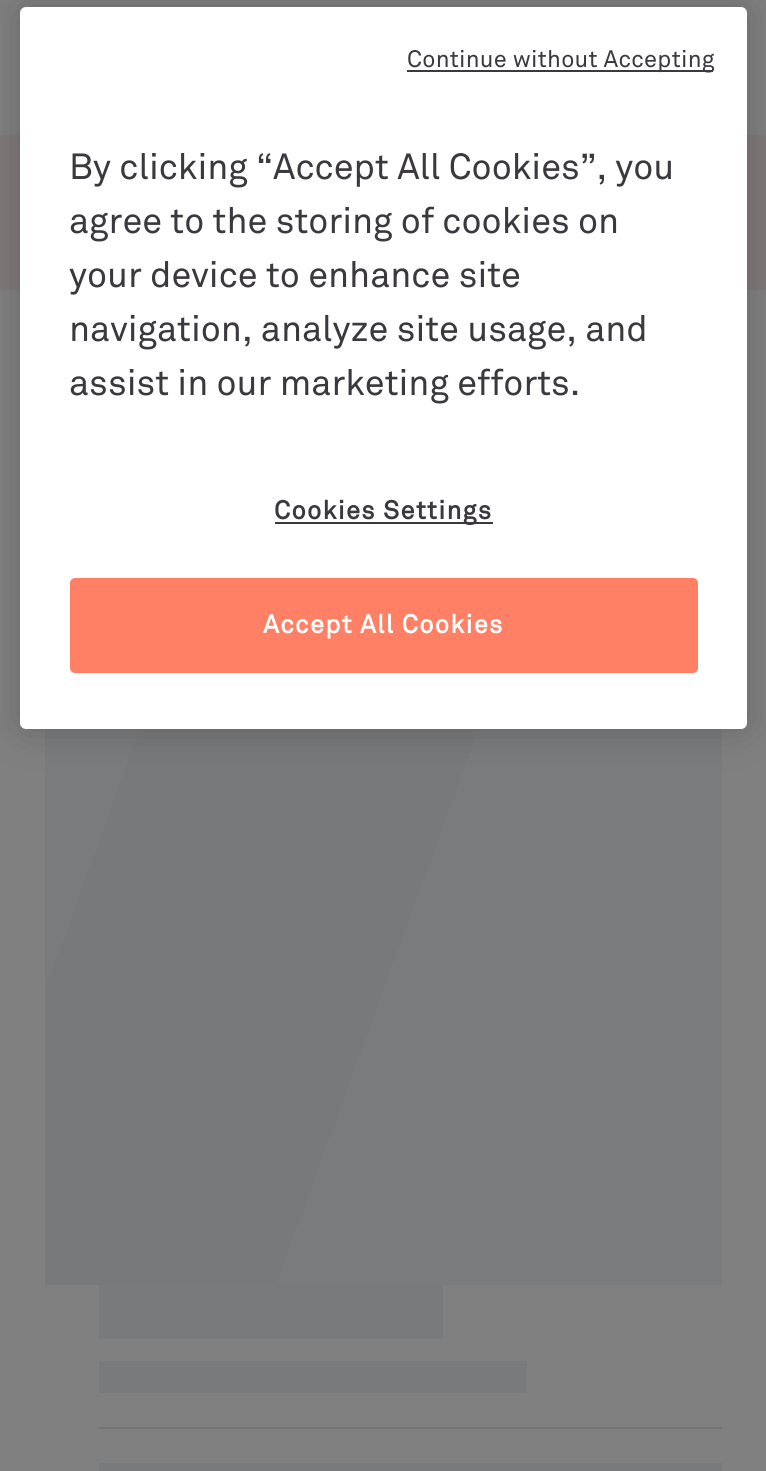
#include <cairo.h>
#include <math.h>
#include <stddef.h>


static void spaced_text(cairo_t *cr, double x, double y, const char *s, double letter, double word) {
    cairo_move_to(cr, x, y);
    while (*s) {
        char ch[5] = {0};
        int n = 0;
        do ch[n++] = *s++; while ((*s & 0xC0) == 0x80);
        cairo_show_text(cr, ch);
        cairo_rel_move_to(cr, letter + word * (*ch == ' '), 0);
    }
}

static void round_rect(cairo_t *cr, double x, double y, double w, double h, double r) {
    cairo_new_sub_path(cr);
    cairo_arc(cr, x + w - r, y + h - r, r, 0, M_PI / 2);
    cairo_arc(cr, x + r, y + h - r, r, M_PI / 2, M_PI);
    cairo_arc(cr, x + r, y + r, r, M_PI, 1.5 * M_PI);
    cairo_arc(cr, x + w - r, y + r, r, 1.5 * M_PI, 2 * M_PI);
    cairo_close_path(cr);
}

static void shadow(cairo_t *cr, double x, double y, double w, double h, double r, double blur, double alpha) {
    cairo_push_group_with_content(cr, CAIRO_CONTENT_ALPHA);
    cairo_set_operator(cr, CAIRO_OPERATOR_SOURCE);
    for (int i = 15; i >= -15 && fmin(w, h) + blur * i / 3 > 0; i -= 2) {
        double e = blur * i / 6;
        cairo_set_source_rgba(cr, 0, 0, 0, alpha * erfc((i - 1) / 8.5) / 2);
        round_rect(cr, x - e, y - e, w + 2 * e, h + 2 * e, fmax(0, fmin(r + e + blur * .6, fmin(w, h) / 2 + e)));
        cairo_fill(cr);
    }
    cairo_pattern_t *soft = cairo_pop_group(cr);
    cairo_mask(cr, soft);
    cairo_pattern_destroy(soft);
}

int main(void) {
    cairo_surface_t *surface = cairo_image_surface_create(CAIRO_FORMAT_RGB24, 766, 1471);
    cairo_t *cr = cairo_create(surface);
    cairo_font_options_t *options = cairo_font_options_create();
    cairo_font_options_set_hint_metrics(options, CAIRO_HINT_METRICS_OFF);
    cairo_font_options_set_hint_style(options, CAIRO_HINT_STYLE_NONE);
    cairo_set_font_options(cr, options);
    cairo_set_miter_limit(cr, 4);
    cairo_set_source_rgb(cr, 0.502, 0.502, 0.502);
    cairo_paint(cr);
    cairo_set_source_rgb(cr, 0.498, 0.478, 0.471);
    cairo_rectangle(cr, 0, 135, 766, 155);
    cairo_fill(cr);
    cairo_set_source_rgb(cr, 0.475, 0.482, 0.486);
    cairo_rectangle(cr, 45, 729, 677, 556);
    cairo_fill(cr);
    cairo_save(cr);
    cairo_rectangle(cr, 45, 695, 677, 590);
    cairo_clip(cr);
    cairo_set_source_rgb(cr, 0.471, 0.475, 0.478);
    cairo_new_path(cr);
    cairo_move_to(cr, 152, 695);
    cairo_line_to(cr, 491, 695);
    cairo_line_to(cr, 276, 1285);
    cairo_line_to(cr, -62, 1285);
    cairo_close_path(cr);
    cairo_fill(cr);
    cairo_restore(cr);
    cairo_set_source_rgb(cr, 0, 0, 0);
    shadow(cr, 20, 7, 727, 722, 6, 20, 0.2);
    cairo_set_source_rgb(cr, 1, 1, 1);
    round_rect(cr, 20, 7, 727, 722, 6);
    cairo_fill(cr);
    cairo_set_source_rgb(cr, 0.231, 0.224, 0.247);
    cairo_rectangle(cr, 407, 70, 306, 2);
    cairo_fill(cr);
    cairo_select_font_face(cr, "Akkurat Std", CAIRO_FONT_SLANT_NORMAL, CAIRO_FONT_WEIGHT_NORMAL);
    cairo_set_font_size(cr, 23.6);
    spaced_text(cr, 407, 67, "Continue without Accepting", 0.25, 0);
    cairo_set_font_size(cr, 36);
    cairo_move_to(cr, 69, 179);
    cairo_show_text(cr, "By clicking “Accept All Cookies”, you");
    cairo_move_to(cr, 69, 233);
    cairo_show_text(cr, "agree to the storing of cookies on");
    cairo_move_to(cr, 69, 287);
    cairo_show_text(cr, "your device to enhance site");
    cairo_move_to(cr, 69, 341);
    cairo_show_text(cr, "navigation, analyze site usage, and");
    cairo_move_to(cr, 69, 395);
    cairo_show_text(cr, "assist in our marketing efforts.");
    cairo_rectangle(cr, 275, 522, 218, 2);
    cairo_fill(cr);
    cairo_select_font_face(cr, "Akkurat Std", CAIRO_FONT_SLANT_NORMAL, CAIRO_FONT_WEIGHT_BOLD);
    cairo_set_font_size(cr, 25.6);
    spaced_text(cr, 274, 519, "Cookies Settings", 1.25, 0);
    cairo_set_source_rgb(cr, 1, 0.502, 0.396);
    round_rect(cr, 71, 579, 626, 93, 4);
    cairo_fill_preserve(cr);
    cairo_stroke(cr);
    cairo_set_source_rgb(cr, 1, 1, 1);
    spaced_text(cr, 263, 633, "Accept All Cookies", 1.25, 0);
    cairo_set_source_rgb(cr, 0.475, 0.478, 0.482);
    cairo_rectangle(cr, 99, 1285, 344, 54);
    cairo_fill(cr);
    cairo_rectangle(cr, 99, 1361, 428, 32);
    cairo_fill(cr);
    cairo_set_source_rgb(cr, 0.459, 0.455, 0.459);
    cairo_rectangle(cr, 99, 1427, 623, 2);
    cairo_fill(cr);
    cairo_set_source_rgb(cr, 0.475, 0.478, 0.482);
    cairo_rectangle(cr, 99, 1463, 623, 8);
    cairo_fill(cr);
    cairo_surface_write_to_png(surface, "page.png");
    cairo_font_options_destroy(options);
    cairo_destroy(cr);
    cairo_surface_destroy(surface);
    return 0;
}
